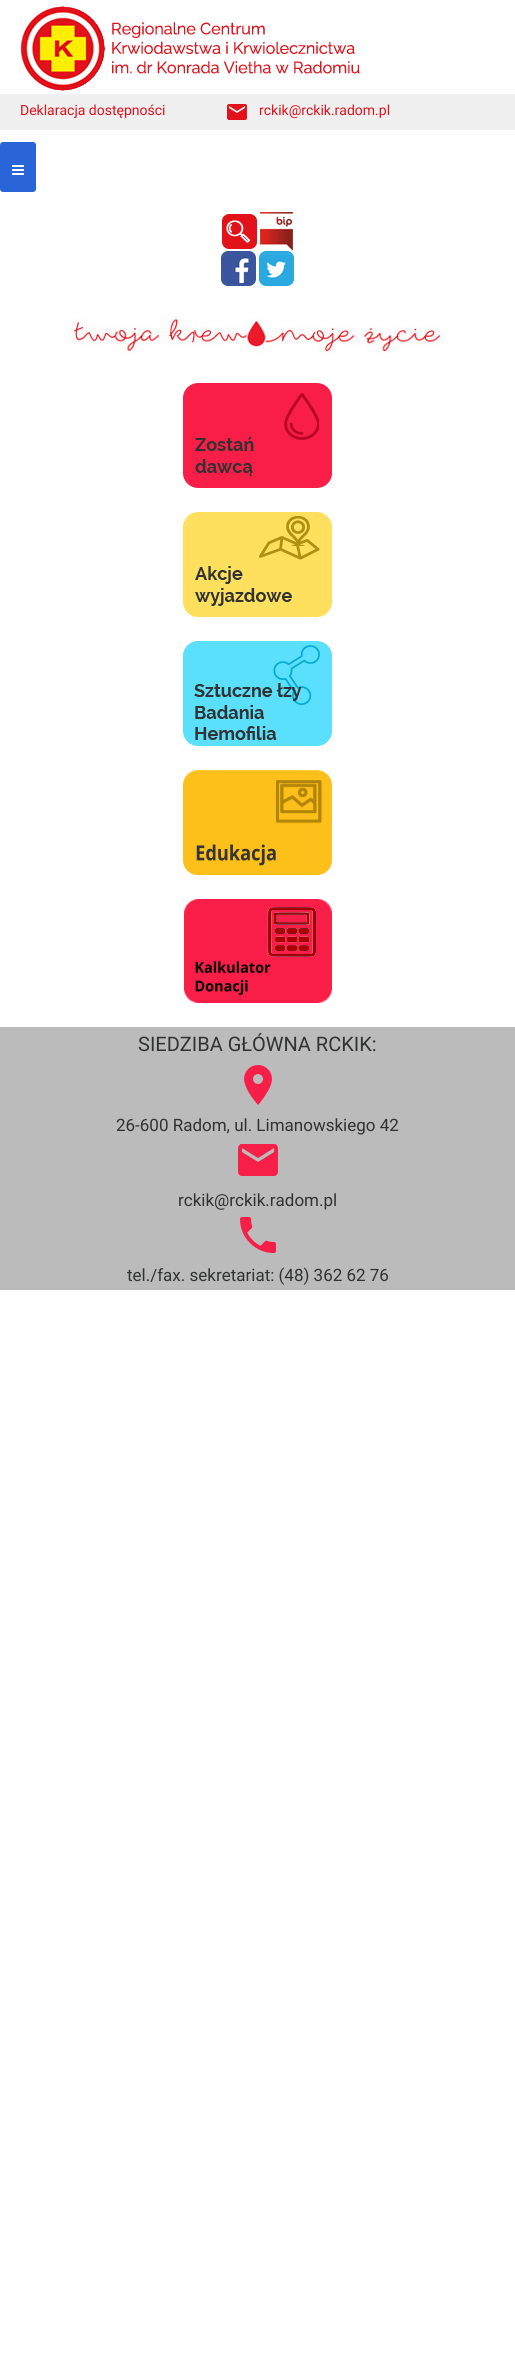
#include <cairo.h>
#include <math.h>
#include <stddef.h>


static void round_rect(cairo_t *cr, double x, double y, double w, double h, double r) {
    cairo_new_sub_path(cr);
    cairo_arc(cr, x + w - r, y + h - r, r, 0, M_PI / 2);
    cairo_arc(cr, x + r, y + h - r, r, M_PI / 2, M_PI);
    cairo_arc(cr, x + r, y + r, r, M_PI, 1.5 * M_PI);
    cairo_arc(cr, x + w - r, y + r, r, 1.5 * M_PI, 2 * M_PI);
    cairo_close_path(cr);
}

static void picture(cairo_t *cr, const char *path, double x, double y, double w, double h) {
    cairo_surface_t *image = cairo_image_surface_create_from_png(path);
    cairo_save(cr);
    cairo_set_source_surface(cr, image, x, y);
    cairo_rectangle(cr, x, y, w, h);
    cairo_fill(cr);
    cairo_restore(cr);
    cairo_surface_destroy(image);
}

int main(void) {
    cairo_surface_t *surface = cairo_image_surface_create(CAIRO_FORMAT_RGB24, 515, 2363);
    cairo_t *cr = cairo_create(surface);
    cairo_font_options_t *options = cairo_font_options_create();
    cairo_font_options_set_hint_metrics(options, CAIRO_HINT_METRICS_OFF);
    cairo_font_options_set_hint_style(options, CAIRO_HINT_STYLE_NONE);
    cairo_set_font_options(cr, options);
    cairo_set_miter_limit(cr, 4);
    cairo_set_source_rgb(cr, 1, 1, 1);
    cairo_paint(cr);
    picture(cr, "img1.png", 20, 6, 340, 85);
    cairo_set_source_rgb(cr, 0.941, 0.941, 0.941);
    cairo_rectangle(cr, 0, 94, 515, 36);
    cairo_fill(cr);
    cairo_select_font_face(cr, "Roboto", CAIRO_FONT_SLANT_NORMAL, CAIRO_FONT_WEIGHT_NORMAL);
    cairo_set_font_size(cr, 14);
    cairo_set_source_rgb(cr, 0.882, 0.071, 0.102);
    cairo_move_to(cr, 20, 115);
    cairo_show_text(cr, "Deklaracja dostępności");
    picture(cr, "img2.png", 227, 104, 20, 16);
    cairo_move_to(cr, 259, 115);
    cairo_show_text(cr, "rckik@rckik.radom.pl");
    cairo_set_source_rgb(cr, 0.161, 0.392, 0.847);
    round_rect(cr, 0, 142, 36, 50, 3);
    cairo_fill(cr);
    picture(cr, "img3.png", 12, 165, 12, 10);
    picture(cr, "img4.png", 222, 214, 35, 35);
    picture(cr, "img5.png", 260, 212, 33, 39);
    picture(cr, "img6.png", 221, 251, 35, 35);
    picture(cr, "img7.png", 259, 251, 35, 35);
    picture(cr, "img8.png", 68, 318, 377, 36);
    picture(cr, "img9.png", 183, 383, 149, 105);
    picture(cr, "img10.png", 183, 512, 149, 105);
    picture(cr, "img11.png", 183, 641, 149, 105);
    picture(cr, "img12.png", 183, 770, 149, 105);
    picture(cr, "img13.png", 184, 899, 148, 104);
    cairo_set_source_rgb(cr, 0.733, 0.733, 0.733);
    cairo_rectangle(cr, 0, 1027, 515, 263);
    cairo_fill(cr);
    cairo_set_font_size(cr, 20);
    cairo_set_source_rgb(cr, 0.192, 0.196, 0.196);
    cairo_move_to(cr, 138, 1051);
    cairo_show_text(cr, "SIEDZIBA GŁÓWNA RCKIK:");
    picture(cr, "img14.png", 244, 1065, 28, 40);
    cairo_set_font_size(cr, 17);
    cairo_move_to(cr, 116, 1131);
    cairo_show_text(cr, "26-600 Radom, ul. Limanowskiego 42");
    picture(cr, "img15.png", 238, 1144, 40, 32);
    cairo_move_to(cr, 178, 1206);
    cairo_show_text(cr, "rckik@rckik.radom.pl");
    picture(cr, "img16.png", 240, 1217, 36, 36);
    cairo_move_to(cr, 127, 1281);
    cairo_show_text(cr, "tel./fax. sekretariat: (48) 362 62 76");
    cairo_surface_write_to_png(surface, "page.png");
    cairo_font_options_destroy(options);
    cairo_destroy(cr);
    cairo_surface_destroy(surface);
    return 0;
}
